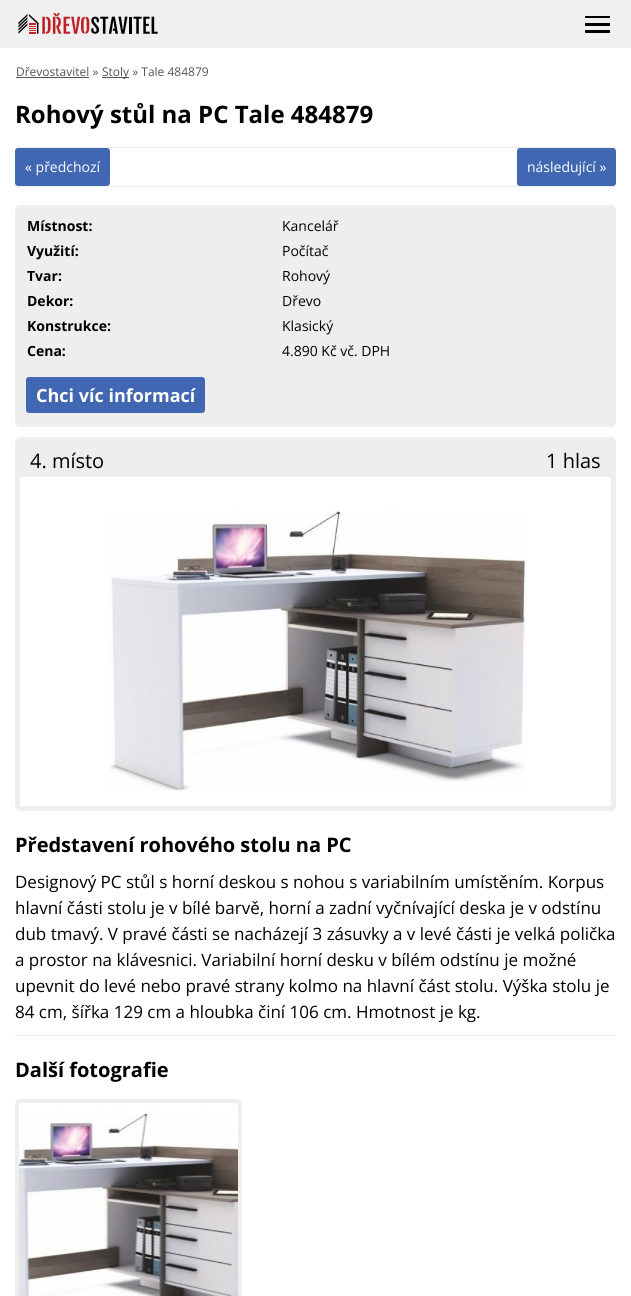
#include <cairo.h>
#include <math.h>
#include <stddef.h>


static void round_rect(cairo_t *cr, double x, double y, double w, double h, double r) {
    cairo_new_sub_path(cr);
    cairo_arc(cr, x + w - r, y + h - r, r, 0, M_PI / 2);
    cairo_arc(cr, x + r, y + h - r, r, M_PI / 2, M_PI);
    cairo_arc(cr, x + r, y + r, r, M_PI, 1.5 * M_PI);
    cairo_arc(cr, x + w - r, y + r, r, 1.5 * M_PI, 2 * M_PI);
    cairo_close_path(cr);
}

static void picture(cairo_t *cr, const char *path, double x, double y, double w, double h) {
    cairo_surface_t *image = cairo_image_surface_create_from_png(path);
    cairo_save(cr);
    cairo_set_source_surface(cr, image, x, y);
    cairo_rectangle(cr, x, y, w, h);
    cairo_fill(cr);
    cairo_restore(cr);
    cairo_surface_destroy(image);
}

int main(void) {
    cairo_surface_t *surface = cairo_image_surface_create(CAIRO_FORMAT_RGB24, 631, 1296);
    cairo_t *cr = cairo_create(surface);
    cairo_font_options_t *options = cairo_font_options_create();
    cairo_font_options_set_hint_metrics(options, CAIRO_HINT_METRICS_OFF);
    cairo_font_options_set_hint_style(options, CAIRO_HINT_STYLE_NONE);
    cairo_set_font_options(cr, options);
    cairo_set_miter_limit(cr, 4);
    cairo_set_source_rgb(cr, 1, 1, 1);
    cairo_paint(cr);
    cairo_set_source_rgb(cr, 0.941, 0.941, 0.941);
    cairo_rectangle(cr, 0, 0, 631, 48);
    cairo_fill(cr);
    picture(cr, "img1.png", 18, 13, 140, 21);
    cairo_set_source_rgb(cr, 0, 0, 0);
    round_rect(cr, 585, 16, 25, 2, 0.5);
    cairo_fill(cr);
    round_rect(cr, 585, 30, 25, 3, 0.5);
    cairo_fill(cr);
    round_rect(cr, 585, 23, 25, 3, 0.5);
    cairo_fill(cr);
    cairo_select_font_face(cr, "Open Sans", CAIRO_FONT_SLANT_NORMAL, CAIRO_FONT_WEIGHT_NORMAL);
    cairo_set_font_size(cr, 12);
    cairo_set_source_rgb(cr, 0.333, 0.333, 0.333);
    cairo_move_to(cr, 16, 76);
    cairo_show_text(cr, "Dřevostavitel »");
    cairo_rectangle(cr, 16, 77, 73, 1);
    cairo_fill(cr);
    cairo_rectangle(cr, 102, 77, 27, 1);
    cairo_fill(cr);
    cairo_move_to(cr, 102, 76);
    cairo_show_text(cr, "Stoly » Tale 484879");
    cairo_select_font_face(cr, "Open Sans", CAIRO_FONT_SLANT_NORMAL, CAIRO_FONT_WEIGHT_BOLD);
    cairo_set_font_size(cr, 24);
    cairo_set_source_rgb(cr, 0, 0, 0);
    cairo_move_to(cr, 15, 123);
    cairo_show_text(cr, "Rohový stůl na PC Tale 484879");
    cairo_set_source_rgb(cr, 0.925, 0.925, 0.925);
    cairo_rectangle(cr, 15, 147, 601, 1);
    cairo_fill(cr);
    cairo_set_source_rgb(cr, 0.259, 0.404, 0.698);
    round_rect(cr, 15, 148, 95, 38, 3);
    cairo_fill(cr);
    cairo_select_font_face(cr, "Open Sans", CAIRO_FONT_SLANT_NORMAL, CAIRO_FONT_WEIGHT_NORMAL);
    cairo_set_font_size(cr, 14);
    cairo_set_source_rgb(cr, 1, 1, 1);
    cairo_move_to(cr, 25, 172);
    cairo_show_text(cr, "« předchozí");
    cairo_set_source_rgb(cr, 0.259, 0.404, 0.698);
    round_rect(cr, 517, 148, 99, 38, 3);
    cairo_fill(cr);
    cairo_set_source_rgb(cr, 1, 1, 1);
    cairo_move_to(cr, 527, 172);
    cairo_show_text(cr, "následující »");
    cairo_set_source_rgb(cr, 0.925, 0.925, 0.925);
    cairo_rectangle(cr, 15, 186, 601, 1);
    cairo_fill(cr);
    cairo_set_source_rgb(cr, 0.933, 0.933, 0.933);
    round_rect(cr, 15, 205, 601, 222, 5);
    cairo_fill(cr);
    cairo_select_font_face(cr, "Open Sans", CAIRO_FONT_SLANT_NORMAL, CAIRO_FONT_WEIGHT_BOLD);
    cairo_set_source_rgb(cr, 0, 0, 0);
    cairo_move_to(cr, 27, 231);
    cairo_show_text(cr, "Místnost:");
    cairo_select_font_face(cr, "Open Sans", CAIRO_FONT_SLANT_NORMAL, CAIRO_FONT_WEIGHT_NORMAL);
    cairo_move_to(cr, 282, 231);
    cairo_show_text(cr, "Kancelář");
    cairo_select_font_face(cr, "Open Sans", CAIRO_FONT_SLANT_NORMAL, CAIRO_FONT_WEIGHT_BOLD);
    cairo_move_to(cr, 27, 256);
    cairo_show_text(cr, "Využití:");
    cairo_select_font_face(cr, "Open Sans", CAIRO_FONT_SLANT_NORMAL, CAIRO_FONT_WEIGHT_NORMAL);
    cairo_move_to(cr, 282, 256);
    cairo_show_text(cr, "Počítač");
    cairo_select_font_face(cr, "Open Sans", CAIRO_FONT_SLANT_NORMAL, CAIRO_FONT_WEIGHT_BOLD);
    cairo_move_to(cr, 27, 281);
    cairo_show_text(cr, "Tvar:");
    cairo_select_font_face(cr, "Open Sans", CAIRO_FONT_SLANT_NORMAL, CAIRO_FONT_WEIGHT_NORMAL);
    cairo_move_to(cr, 282, 281);
    cairo_show_text(cr, "Rohový");
    cairo_select_font_face(cr, "Open Sans", CAIRO_FONT_SLANT_NORMAL, CAIRO_FONT_WEIGHT_BOLD);
    cairo_move_to(cr, 27, 306);
    cairo_show_text(cr, "Dekor:");
    cairo_select_font_face(cr, "Open Sans", CAIRO_FONT_SLANT_NORMAL, CAIRO_FONT_WEIGHT_NORMAL);
    cairo_move_to(cr, 282, 306);
    cairo_show_text(cr, "Dřevo");
    cairo_select_font_face(cr, "Open Sans", CAIRO_FONT_SLANT_NORMAL, CAIRO_FONT_WEIGHT_BOLD);
    cairo_move_to(cr, 27, 331);
    cairo_show_text(cr, "Konstrukce:");
    cairo_select_font_face(cr, "Open Sans", CAIRO_FONT_SLANT_NORMAL, CAIRO_FONT_WEIGHT_NORMAL);
    cairo_move_to(cr, 282, 331);
    cairo_show_text(cr, "Klasický");
    cairo_select_font_face(cr, "Open Sans", CAIRO_FONT_SLANT_NORMAL, CAIRO_FONT_WEIGHT_BOLD);
    cairo_move_to(cr, 27, 356);
    cairo_show_text(cr, "Cena:");
    cairo_select_font_face(cr, "Open Sans", CAIRO_FONT_SLANT_NORMAL, CAIRO_FONT_WEIGHT_NORMAL);
    cairo_move_to(cr, 282, 356);
    cairo_show_text(cr, "4.890 Kč vč. DPH");
    cairo_set_source_rgb(cr, 0.259, 0.404, 0.698);
    round_rect(cr, 26, 377, 179, 36, 3);
    cairo_fill(cr);
    cairo_select_font_face(cr, "Open Sans", CAIRO_FONT_SLANT_NORMAL, CAIRO_FONT_WEIGHT_BOLD);
    cairo_set_font_size(cr, 18);
    cairo_set_source_rgb(cr, 1, 1, 1);
    cairo_move_to(cr, 36, 402);
    cairo_show_text(cr, "Chci víc informací");
    round_rect(cr, 17.5, 439.5, 596, 369, 2.5);
    cairo_set_source_rgb(cr, 0.933, 0.933, 0.933);
    cairo_set_line_width(cr, 5);
    cairo_stroke(cr);
    cairo_rectangle(cr, 20, 442, 591, 35);
    cairo_fill(cr);
    cairo_select_font_face(cr, "Open Sans", CAIRO_FONT_SLANT_NORMAL, CAIRO_FONT_WEIGHT_NORMAL);
    cairo_set_font_size(cr, 20);
    cairo_set_source_rgb(cr, 0, 0, 0);
    cairo_move_to(cr, 30, 468);
    cairo_show_text(cr, "4. místo");
    cairo_move_to(cr, 546, 468);
    cairo_show_text(cr, "1 hlas");
    picture(cr, "img2.png", 109, 511, 418, 281);
    cairo_select_font_face(cr, "Open Sans", CAIRO_FONT_SLANT_NORMAL, CAIRO_FONT_WEIGHT_BOLD);
    cairo_move_to(cr, 15, 852);
    cairo_show_text(cr, "Představení rohového stolu na PC");
    cairo_select_font_face(cr, "Open Sans", CAIRO_FONT_SLANT_NORMAL, CAIRO_FONT_WEIGHT_NORMAL);
    cairo_set_font_size(cr, 17);
    cairo_move_to(cr, 15, 888);
    cairo_show_text(cr, "Designový PC stůl s horní deskou s nohou s variabilním umístěním. Korpus");
    cairo_move_to(cr, 15, 914);
    cairo_show_text(cr, "hlavní části stolu je v bílé barvě, horní a zadní vyčnívající deska je v odstínu");
    cairo_move_to(cr, 15, 940);
    cairo_show_text(cr, "dub tmavý. V pravé části se nacházejí 3 zásuvky a v levé části je velká polička");
    cairo_move_to(cr, 15, 966);
    cairo_show_text(cr, "a prostor na klávesnici. Variabilní horní desku v bílém odstínu je možné");
    cairo_move_to(cr, 15, 992);
    cairo_show_text(cr, "upevnit do levé nebo pravé strany kolmo na hlavní část stolu. Výška stolu je");
    cairo_move_to(cr, 15, 1018);
    cairo_show_text(cr, "84 cm, šířka 129 cm a hloubka činí 106 cm. Hmotnost je kg.");
    cairo_set_source_rgb(cr, 0.925, 0.925, 0.925);
    cairo_rectangle(cr, 15, 1035, 601, 1);
    cairo_fill(cr);
    cairo_select_font_face(cr, "Open Sans", CAIRO_FONT_SLANT_NORMAL, CAIRO_FONT_WEIGHT_BOLD);
    cairo_set_font_size(cr, 20);
    cairo_set_source_rgb(cr, 0, 0, 0);
    cairo_move_to(cr, 15, 1077);
    cairo_show_text(cr, "Další fotografie");
    picture(cr, "img3.png", 19, 1110, 219, 186);
    round_rect(cr, 17, 1101, 223, 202, 3);
    cairo_set_source_rgb(cr, 0.933, 0.933, 0.933);
    cairo_set_line_width(cr, 4);
    cairo_stroke(cr);
    cairo_surface_write_to_png(surface, "page.png");
    cairo_font_options_destroy(options);
    cairo_destroy(cr);
    cairo_surface_destroy(surface);
    return 0;
}
